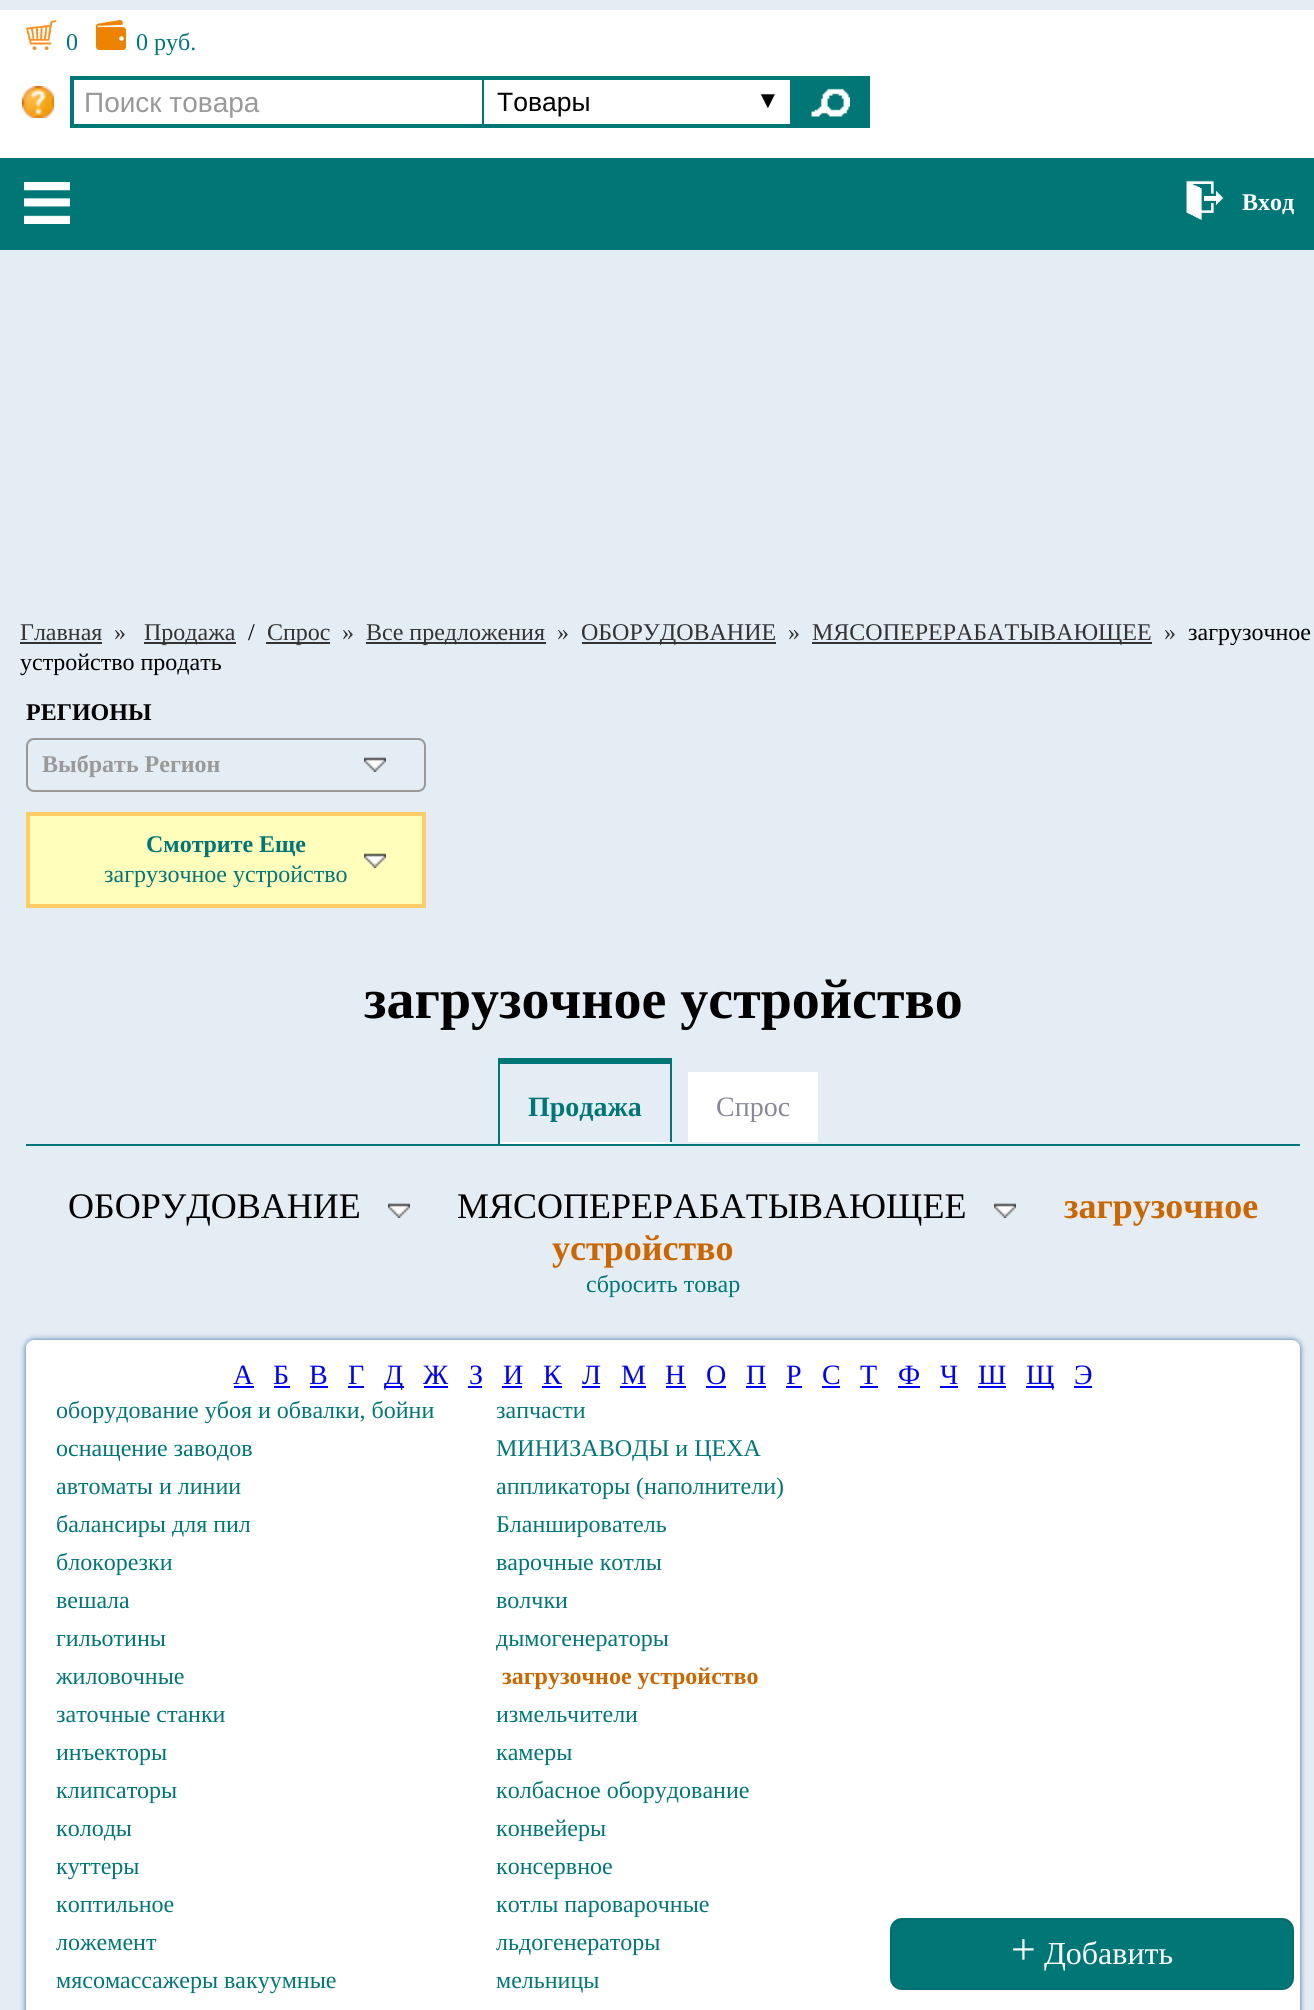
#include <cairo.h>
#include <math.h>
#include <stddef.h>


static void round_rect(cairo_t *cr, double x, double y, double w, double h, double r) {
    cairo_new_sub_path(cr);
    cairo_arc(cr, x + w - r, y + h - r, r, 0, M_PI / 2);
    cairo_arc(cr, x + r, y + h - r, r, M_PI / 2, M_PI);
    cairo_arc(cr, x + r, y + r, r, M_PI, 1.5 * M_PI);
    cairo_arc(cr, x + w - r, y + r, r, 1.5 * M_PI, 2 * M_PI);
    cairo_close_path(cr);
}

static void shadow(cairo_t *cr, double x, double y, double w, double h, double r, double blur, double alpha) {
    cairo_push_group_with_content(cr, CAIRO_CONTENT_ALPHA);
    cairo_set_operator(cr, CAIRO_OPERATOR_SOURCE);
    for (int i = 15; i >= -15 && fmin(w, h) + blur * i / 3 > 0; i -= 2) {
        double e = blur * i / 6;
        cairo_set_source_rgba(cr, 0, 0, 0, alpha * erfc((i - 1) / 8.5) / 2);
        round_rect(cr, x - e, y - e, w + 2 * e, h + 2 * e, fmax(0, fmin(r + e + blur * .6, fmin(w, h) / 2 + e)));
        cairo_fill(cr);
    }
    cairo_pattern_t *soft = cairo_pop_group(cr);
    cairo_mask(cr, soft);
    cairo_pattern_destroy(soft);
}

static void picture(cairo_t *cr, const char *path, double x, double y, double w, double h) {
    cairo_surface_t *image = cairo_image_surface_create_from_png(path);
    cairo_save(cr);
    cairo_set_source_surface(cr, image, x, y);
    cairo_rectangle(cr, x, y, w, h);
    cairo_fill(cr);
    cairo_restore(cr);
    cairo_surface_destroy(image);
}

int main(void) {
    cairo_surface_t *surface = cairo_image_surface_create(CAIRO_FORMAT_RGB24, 1314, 2010);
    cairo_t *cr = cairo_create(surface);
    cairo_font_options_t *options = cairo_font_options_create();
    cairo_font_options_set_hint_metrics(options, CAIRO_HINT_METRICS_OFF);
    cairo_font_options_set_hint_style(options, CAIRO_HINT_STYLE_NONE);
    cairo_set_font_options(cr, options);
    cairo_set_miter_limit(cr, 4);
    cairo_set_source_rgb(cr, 0.894, 0.929, 0.953);
    cairo_paint(cr);
    cairo_set_source_rgb(cr, 1, 1, 1);
    cairo_rectangle(cr, 0, 10, 1314, 148);
    cairo_fill(cr);
    picture(cr, "img1.png", 26, 20, 30, 30);
    cairo_select_font_face(cr, "Liberation Serif", CAIRO_FONT_SLANT_NORMAL, CAIRO_FONT_WEIGHT_NORMAL);
    cairo_set_font_size(cr, 24);
    cairo_set_source_rgb(cr, 0, 0.467, 0.467);
    cairo_move_to(cr, 66, 50);
    cairo_show_text(cr, "0");
    picture(cr, "img2.png", 96, 20, 30, 30);
    cairo_move_to(cr, 136, 50);
    cairo_show_text(cr, "0 руб.");
    picture(cr, "img3.png", 22, 86, 32, 32);
    cairo_rectangle(cr, 72, 78, 418, 48);
    cairo_set_line_width(cr, 4);
    cairo_stroke(cr);
    cairo_select_font_face(cr, "Liberation Sans", CAIRO_FONT_SLANT_NORMAL, CAIRO_FONT_WEIGHT_NORMAL);
    cairo_set_font_size(cr, 28);
    cairo_set_source_rgb(cr, 0.6, 0.6, 0.6);
    cairo_move_to(cr, 84, 112);
    cairo_show_text(cr, "Поиск товара");
    cairo_set_source_rgb(cr, 1, 1, 1);
    cairo_rectangle(cr, 488, 80, 4, 44);
    cairo_fill(cr);
    cairo_set_source_rgb(cr, 0, 0.467, 0.467);
    cairo_rectangle(cr, 492, 76, 298, 4);
    cairo_fill(cr);
    cairo_rectangle(cr, 492, 124, 298, 4);
    cairo_fill(cr);
    cairo_rectangle(cr, 482, 76, 2, 52);
    cairo_fill(cr);
    cairo_set_font_size(cr, 26.5);
    cairo_set_source_rgb(cr, 0, 0, 0);
    cairo_move_to(cr, 497, 111);
    cairo_show_text(cr, "Товары");
    cairo_select_font_face(cr, "Liberation Serif", CAIRO_FONT_SLANT_NORMAL, CAIRO_FONT_WEIGHT_NORMAL);
    cairo_set_font_size(cr, 24);
    cairo_move_to(cr, 756, 108);
    cairo_show_text(cr, "▼");
    cairo_set_source_rgb(cr, 0, 0.467, 0.467);
    cairo_rectangle(cr, 790, 76, 80, 52);
    cairo_fill(cr);
    picture(cr, "img4.png", 811, 88, 39, 29);
    cairo_rectangle(cr, 0, 158, 1314, 92);
    cairo_fill(cr);
    picture(cr, "img5.png", 24, 182, 46, 42);
    picture(cr, "img6.png", 1186, 180, 38, 40);
    cairo_select_font_face(cr, "Liberation Serif", CAIRO_FONT_SLANT_NORMAL, CAIRO_FONT_WEIGHT_BOLD);
    cairo_set_source_rgb(cr, 1, 1, 1);
    cairo_move_to(cr, 1242, 210);
    cairo_show_text(cr, "Вход");
    cairo_select_font_face(cr, "Liberation Serif", CAIRO_FONT_SLANT_NORMAL, CAIRO_FONT_WEIGHT_NORMAL);
    cairo_set_source_rgb(cr, 0.2, 0.2, 0.2);
    cairo_move_to(cr, 20, 640);
    cairo_show_text(cr, "Главная");
    cairo_rectangle(cr, 20, 642, 82, 2);
    cairo_fill(cr);
    cairo_move_to(cr, 114, 640);
    cairo_show_text(cr, "»");
    cairo_rectangle(cr, 144, 642, 92, 2);
    cairo_fill(cr);
    cairo_move_to(cr, 144, 640);
    cairo_show_text(cr, "Продажа");
    cairo_set_source_rgb(cr, 0, 0, 0);
    cairo_move_to(cr, 248, 640);
    cairo_show_text(cr, "/");
    cairo_set_source_rgb(cr, 0.2, 0.2, 0.2);
    cairo_rectangle(cr, 266, 642, 64, 2);
    cairo_fill(cr);
    cairo_move_to(cr, 267, 640);
    cairo_show_text(cr, "Спрос");
    cairo_move_to(cr, 342, 640);
    cairo_show_text(cr, "»");
    cairo_rectangle(cr, 366, 642, 180, 2);
    cairo_fill(cr);
    cairo_move_to(cr, 366, 640);
    cairo_show_text(cr, "Все предложения");
    cairo_move_to(cr, 557, 640);
    cairo_show_text(cr, "»");
    cairo_rectangle(cr, 582, 642, 194, 2);
    cairo_fill(cr);
    cairo_move_to(cr, 581, 640);
    cairo_show_text(cr, "ОБОРУДОВАНИЕ");
    cairo_move_to(cr, 788, 640);
    cairo_show_text(cr, "»");
    cairo_rectangle(cr, 812, 642, 340, 2);
    cairo_fill(cr);
    cairo_move_to(cr, 812, 640);
    cairo_show_text(cr, "МЯСОПЕРЕРАБАТЫВАЮЩЕЕ");
    cairo_move_to(cr, 1164, 640);
    cairo_show_text(cr, "»");
    cairo_set_source_rgb(cr, 0, 0, 0);
    cairo_move_to(cr, 1188, 640);
    cairo_show_text(cr, "загрузочное");
    cairo_move_to(cr, 20, 670);
    cairo_show_text(cr, "устройство продать");
    cairo_select_font_face(cr, "Liberation Serif", CAIRO_FONT_SLANT_NORMAL, CAIRO_FONT_WEIGHT_BOLD);
    cairo_move_to(cr, 26, 720);
    cairo_show_text(cr, "РЕГИОНЫ");
    picture(cr, "img7.png", 364, 757, 22, 15);
    round_rect(cr, 27, 739, 398, 52, 7);
    cairo_set_source_rgb(cr, 0.6, 0.6, 0.6);
    cairo_set_line_width(cr, 2);
    cairo_stroke(cr);
    cairo_move_to(cr, 42, 772);
    cairo_show_text(cr, "Выбрать Регион");
    cairo_set_source_rgb(cr, 1, 1, 0.733);
    cairo_rectangle(cr, 30, 816, 392, 88);
    cairo_fill(cr);
    picture(cr, "img8.png", 364, 853, 22, 15);
    cairo_rectangle(cr, 28, 814, 396, 92);
    cairo_set_source_rgb(cr, 1, 0.8, 0.4);
    cairo_set_line_width(cr, 4);
    cairo_stroke(cr);
    cairo_set_source_rgb(cr, 0, 0.467, 0.467);
    cairo_move_to(cr, 146, 852);
    cairo_show_text(cr, "Смотрите Еще");
    cairo_select_font_face(cr, "Liberation Serif", CAIRO_FONT_SLANT_NORMAL, CAIRO_FONT_WEIGHT_NORMAL);
    cairo_move_to(cr, 104, 882);
    cairo_show_text(cr, "загрузочное устройство");
    cairo_set_source_rgb(cr, 0.227, 0.396, 0.671);
    shadow(cr, 26, 1340, 1274, 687, 8, 3, 1);
    cairo_set_source_rgb(cr, 1, 1, 1);
    round_rect(cr, 26, 1340, 1274, 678, 8);
    cairo_fill(cr);
    cairo_set_source_rgb(cr, 0, 0.467, 0.467);
    round_rect(cr, 891, 1919, 402, 70, 11);
    cairo_fill_preserve(cr);
    cairo_set_source_rgb(cr, 0.004, 0.431, 0.439);
    cairo_set_line_width(cr, 2);
    cairo_stroke(cr);
    cairo_set_font_size(cr, 44);
    cairo_set_source_rgb(cr, 1, 1, 1);
    cairo_move_to(cr, 1011, 1964);
    cairo_show_text(cr, "+");
    cairo_set_font_size(cr, 32);
    cairo_move_to(cr, 1044, 1964);
    cairo_show_text(cr, "Добавить");
    cairo_select_font_face(cr, "Liberation Serif", CAIRO_FONT_SLANT_NORMAL, CAIRO_FONT_WEIGHT_BOLD);
    cairo_set_font_size(cr, 56);
    cairo_set_source_rgb(cr, 0, 0, 0);
    cairo_move_to(cr, 364, 1018);
    cairo_show_text(cr, "загрузочное устройство");
    cairo_set_source_rgb(cr, 0, 0.467, 0.467);
    cairo_rectangle(cr, 26, 1144, 1274, 2);
    cairo_fill(cr);
    cairo_set_font_size(cr, 28);
    cairo_move_to(cr, 528, 1116);
    cairo_show_text(cr, "Продажа");
    cairo_rectangle(cr, 498, 1058, 174, 6);
    cairo_fill(cr);
    cairo_rectangle(cr, 670, 1058, 2, 86);
    cairo_fill(cr);
    cairo_set_source_rgb(cr, 1, 1, 1);
    cairo_rectangle(cr, 498, 1142, 174, 2);
    cairo_fill(cr);
    cairo_set_source_rgb(cr, 0, 0.467, 0.467);
    cairo_rectangle(cr, 498, 1058, 2, 86);
    cairo_fill(cr);
    cairo_set_source_rgb(cr, 1, 1, 1);
    cairo_rectangle(cr, 688, 1072, 130, 70);
    cairo_fill(cr);
    cairo_select_font_face(cr, "Liberation Serif", CAIRO_FONT_SLANT_NORMAL, CAIRO_FONT_WEIGHT_NORMAL);
    cairo_set_source_rgb(cr, 0.533, 0.533, 0.6);
    cairo_move_to(cr, 716, 1116);
    cairo_show_text(cr, "Спрос");
    cairo_set_font_size(cr, 36);
    cairo_set_source_rgb(cr, 0, 0, 0);
    cairo_move_to(cr, 68, 1218);
    cairo_show_text(cr, "ОБОРУДОВАНИЕ");
    picture(cr, "img7.png", 388, 1203, 22, 15);
    cairo_move_to(cr, 457, 1218);
    cairo_show_text(cr, "МЯСОПЕРЕРАБАТЫВАЮЩЕЕ");
    picture(cr, "img7.png", 994, 1203, 22, 15);
    cairo_select_font_face(cr, "Liberation Serif", CAIRO_FONT_SLANT_NORMAL, CAIRO_FONT_WEIGHT_BOLD);
    cairo_set_source_rgb(cr, 0.8, 0.4, 0);
    cairo_move_to(cr, 1064, 1218);
    cairo_show_text(cr, "загрузочное");
    cairo_move_to(cr, 552, 1260);
    cairo_show_text(cr, "устройство");
    cairo_select_font_face(cr, "Liberation Serif", CAIRO_FONT_SLANT_NORMAL, CAIRO_FONT_WEIGHT_NORMAL);
    cairo_set_font_size(cr, 24);
    cairo_set_source_rgb(cr, 0, 0.467, 0.467);
    cairo_move_to(cr, 586, 1292);
    cairo_show_text(cr, "сбросить товар");
    cairo_set_font_size(cr, 28);
    cairo_set_source_rgb(cr, 0, 0, 1);
    cairo_move_to(cr, 233, 1384);
    cairo_show_text(cr, "А");
    cairo_rectangle(cr, 234, 1386, 20, 2);
    cairo_fill(cr);
    cairo_move_to(cr, 273, 1384);
    cairo_show_text(cr, "Б");
    cairo_rectangle(cr, 274, 1386, 16, 2);
    cairo_fill(cr);
    cairo_move_to(cr, 309, 1384);
    cairo_show_text(cr, "В");
    cairo_rectangle(cr, 310, 1386, 18, 2);
    cairo_fill(cr);
    cairo_move_to(cr, 348, 1384);
    cairo_show_text(cr, "Г");
    cairo_rectangle(cr, 348, 1386, 16, 2);
    cairo_fill(cr);
    cairo_rectangle(cr, 384, 1386, 20, 2);
    cairo_fill(cr);
    cairo_move_to(cr, 384, 1384);
    cairo_show_text(cr, "Д");
    cairo_move_to(cr, 423, 1384);
    cairo_show_text(cr, "Ж");
    cairo_rectangle(cr, 424, 1386, 24, 2);
    cairo_fill(cr);
    cairo_move_to(cr, 469, 1384);
    cairo_show_text(cr, "З");
    cairo_rectangle(cr, 468, 1386, 14, 2);
    cairo_fill(cr);
    cairo_move_to(cr, 503, 1384);
    cairo_show_text(cr, "И");
    cairo_rectangle(cr, 502, 1386, 20, 2);
    cairo_fill(cr);
    cairo_move_to(cr, 543, 1384);
    cairo_show_text(cr, "К");
    cairo_rectangle(cr, 542, 1386, 20, 2);
    cairo_fill(cr);
    cairo_move_to(cr, 582, 1384);
    cairo_show_text(cr, "Л");
    cairo_rectangle(cr, 582, 1386, 18, 2);
    cairo_fill(cr);
    cairo_move_to(cr, 621, 1384);
    cairo_show_text(cr, "М");
    cairo_rectangle(cr, 620, 1386, 26, 2);
    cairo_fill(cr);
    cairo_move_to(cr, 665, 1384);
    cairo_show_text(cr, "Н");
    cairo_rectangle(cr, 666, 1386, 20, 2);
    cairo_fill(cr);
    cairo_move_to(cr, 706, 1384);
    cairo_show_text(cr, "О");
    cairo_rectangle(cr, 706, 1386, 20, 2);
    cairo_fill(cr);
    cairo_move_to(cr, 746, 1384);
    cairo_show_text(cr, "П");
    cairo_rectangle(cr, 746, 1386, 20, 2);
    cairo_fill(cr);
    cairo_move_to(cr, 786, 1384);
    cairo_show_text(cr, "Р");
    cairo_rectangle(cr, 786, 1386, 16, 2);
    cairo_fill(cr);
    cairo_move_to(cr, 822, 1384);
    cairo_show_text(cr, "С");
    cairo_rectangle(cr, 822, 1386, 18, 2);
    cairo_fill(cr);
    cairo_move_to(cr, 860, 1384);
    cairo_show_text(cr, "Т");
    cairo_rectangle(cr, 860, 1386, 18, 2);
    cairo_fill(cr);
    cairo_move_to(cr, 898, 1384);
    cairo_show_text(cr, "Ф");
    cairo_rectangle(cr, 898, 1386, 22, 2);
    cairo_fill(cr);
    cairo_move_to(cr, 940, 1384);
    cairo_show_text(cr, "Ч");
    cairo_rectangle(cr, 940, 1386, 18, 2);
    cairo_fill(cr);
    cairo_move_to(cr, 978, 1384);
    cairo_show_text(cr, "Ш");
    cairo_rectangle(cr, 978, 1386, 28, 2);
    cairo_fill(cr);
    cairo_rectangle(cr, 1026, 1386, 28, 2);
    cairo_fill(cr);
    cairo_move_to(cr, 1026, 1384);
    cairo_show_text(cr, "Щ");
    cairo_move_to(cr, 1074, 1384);
    cairo_show_text(cr, "Э");
    cairo_rectangle(cr, 1074, 1386, 18, 2);
    cairo_fill(cr);
    cairo_set_font_size(cr, 24);
    cairo_set_source_rgb(cr, 0, 0.467, 0.467);
    cairo_move_to(cr, 56, 1418);
    cairo_show_text(cr, "оборудование убоя и обвалки, бойни");
    cairo_move_to(cr, 496, 1418);
    cairo_show_text(cr, "запчасти");
    cairo_move_to(cr, 56, 1456);
    cairo_show_text(cr, "оснащение заводов");
    cairo_move_to(cr, 496, 1456);
    cairo_show_text(cr, "МИНИЗАВОДЫ и ЦЕХА");
    cairo_move_to(cr, 56, 1494);
    cairo_show_text(cr, "автоматы и линии");
    cairo_move_to(cr, 496, 1494);
    cairo_show_text(cr, "аппликаторы (наполнители)");
    cairo_move_to(cr, 56, 1532);
    cairo_show_text(cr, "балансиры для пил");
    cairo_move_to(cr, 496, 1532);
    cairo_show_text(cr, "Бланширователь");
    cairo_move_to(cr, 56, 1570);
    cairo_show_text(cr, "блокорезки");
    cairo_move_to(cr, 496, 1570);
    cairo_show_text(cr, "варочные котлы");
    cairo_move_to(cr, 56, 1608);
    cairo_show_text(cr, "вешала");
    cairo_move_to(cr, 496, 1608);
    cairo_show_text(cr, "волчки");
    cairo_move_to(cr, 56, 1646);
    cairo_show_text(cr, "гильотины");
    cairo_move_to(cr, 496, 1646);
    cairo_show_text(cr, "дымогенераторы");
    cairo_move_to(cr, 56, 1684);
    cairo_show_text(cr, "жиловочные");
    cairo_select_font_face(cr, "Liberation Serif", CAIRO_FONT_SLANT_NORMAL, CAIRO_FONT_WEIGHT_BOLD);
    cairo_set_source_rgb(cr, 0.8, 0.4, 0);
    cairo_move_to(cr, 502, 1684);
    cairo_show_text(cr, "загрузочное устройство");
    cairo_select_font_face(cr, "Liberation Serif", CAIRO_FONT_SLANT_NORMAL, CAIRO_FONT_WEIGHT_NORMAL);
    cairo_set_source_rgb(cr, 0, 0.467, 0.467);
    cairo_move_to(cr, 56, 1722);
    cairo_show_text(cr, "заточные станки");
    cairo_move_to(cr, 496, 1722);
    cairo_show_text(cr, "измельчители");
    cairo_move_to(cr, 56, 1760);
    cairo_show_text(cr, "инъекторы");
    cairo_move_to(cr, 496, 1760);
    cairo_show_text(cr, "камеры");
    cairo_move_to(cr, 56, 1798);
    cairo_show_text(cr, "клипсаторы");
    cairo_move_to(cr, 496, 1798);
    cairo_show_text(cr, "колбасное оборудование");
    cairo_move_to(cr, 56, 1836);
    cairo_show_text(cr, "колоды");
    cairo_move_to(cr, 496, 1836);
    cairo_show_text(cr, "конвейеры");
    cairo_move_to(cr, 56, 1874);
    cairo_show_text(cr, "куттеры");
    cairo_move_to(cr, 496, 1874);
    cairo_show_text(cr, "консервное");
    cairo_move_to(cr, 56, 1912);
    cairo_show_text(cr, "коптильное");
    cairo_move_to(cr, 496, 1912);
    cairo_show_text(cr, "котлы пароварочные");
    cairo_move_to(cr, 56, 1950);
    cairo_show_text(cr, "ложемент");
    cairo_move_to(cr, 496, 1950);
    cairo_show_text(cr, "льдогенераторы");
    cairo_move_to(cr, 56, 1988);
    cairo_show_text(cr, "мясомассажеры вакуумные");
    cairo_move_to(cr, 496, 1988);
    cairo_show_text(cr, "мельницы");
    cairo_surface_write_to_png(surface, "page.png");
    cairo_font_options_destroy(options);
    cairo_destroy(cr);
    cairo_surface_destroy(surface);
    return 0;
}
